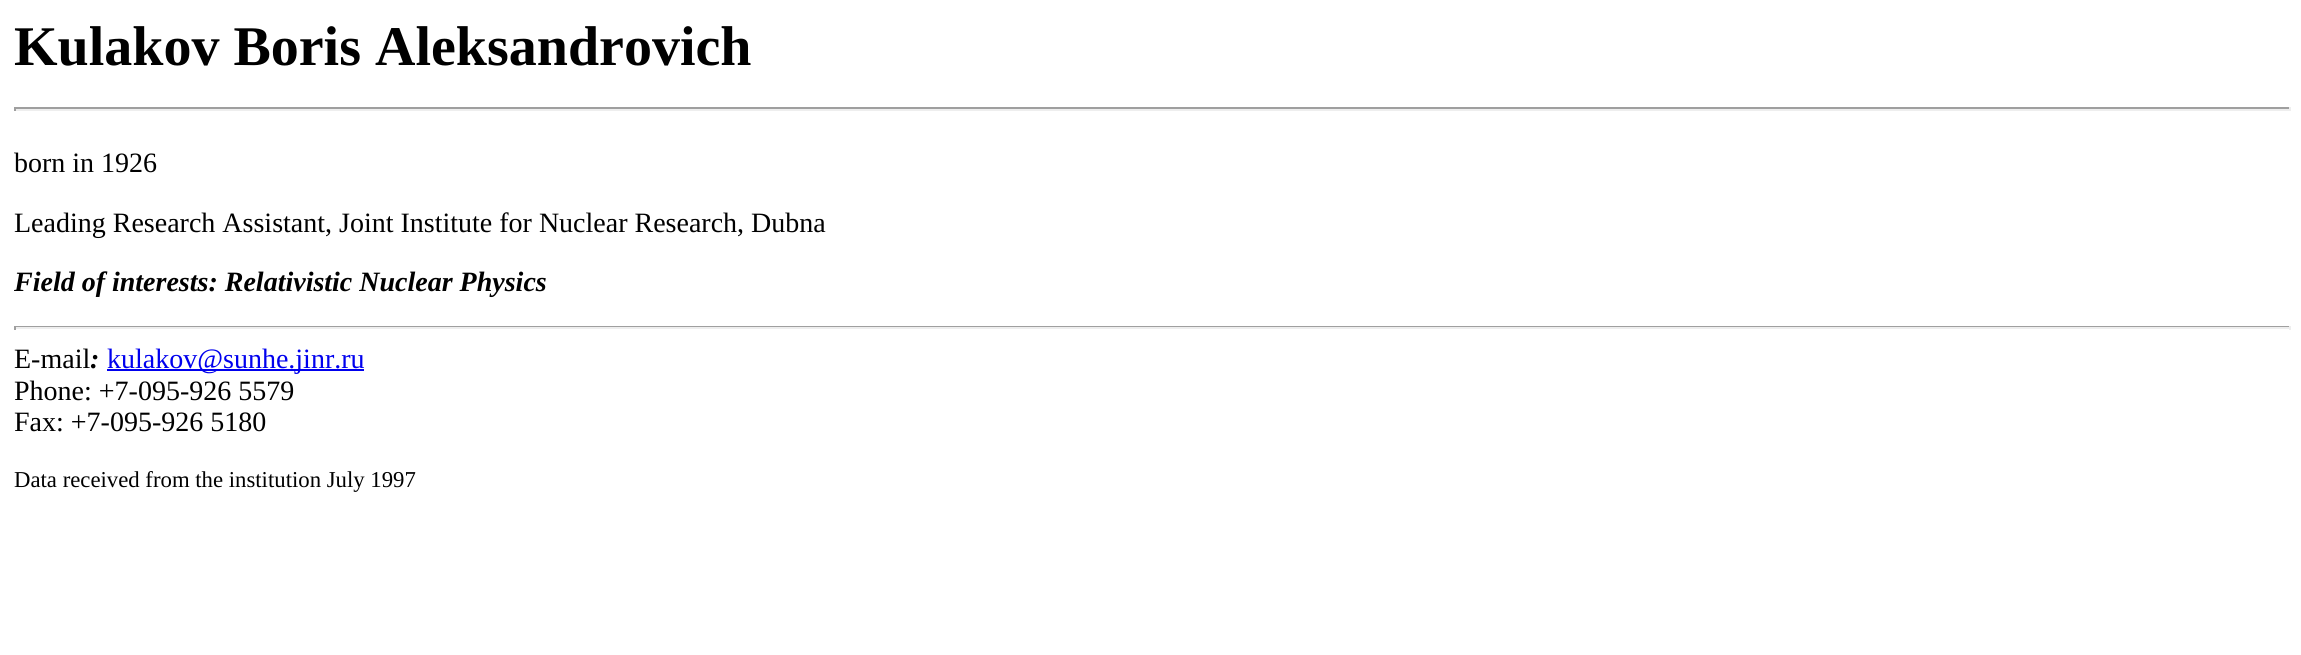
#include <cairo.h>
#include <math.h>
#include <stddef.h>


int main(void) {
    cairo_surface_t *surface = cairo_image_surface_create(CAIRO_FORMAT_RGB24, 2301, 655);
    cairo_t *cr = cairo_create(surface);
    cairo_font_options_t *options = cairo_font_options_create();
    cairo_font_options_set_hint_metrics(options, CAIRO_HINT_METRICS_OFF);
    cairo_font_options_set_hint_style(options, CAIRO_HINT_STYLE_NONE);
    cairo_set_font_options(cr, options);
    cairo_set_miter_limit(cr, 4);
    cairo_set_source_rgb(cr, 1, 1, 1);
    cairo_paint(cr);
    cairo_select_font_face(cr, "Liberation Serif", CAIRO_FONT_SLANT_NORMAL, CAIRO_FONT_WEIGHT_BOLD);
    cairo_set_font_size(cr, 56);
    cairo_set_source_rgb(cr, 0, 0, 0);
    cairo_move_to(cr, 14, 65);
    cairo_show_text(cr, "Kulakov Boris Aleksandrovich");
    cairo_set_source_rgb(cr, 0.624, 0.624, 0.624);
    cairo_rectangle(cr, 14, 107, 2277, 2);
    cairo_fill(cr);
    cairo_set_source_rgb(cr, 0.933, 0.933, 0.933);
    cairo_rectangle(cr, 2289, 107, 2, 4);
    cairo_fill(cr);
    cairo_rectangle(cr, 14, 109, 2277, 2);
    cairo_fill(cr);
    cairo_set_source_rgb(cr, 0.624, 0.624, 0.624);
    cairo_rectangle(cr, 14, 107, 2, 4);
    cairo_fill(cr);
    cairo_select_font_face(cr, "Liberation Serif", CAIRO_FONT_SLANT_NORMAL, CAIRO_FONT_WEIGHT_NORMAL);
    cairo_set_font_size(cr, 28);
    cairo_set_source_rgb(cr, 0, 0, 0);
    cairo_move_to(cr, 14, 172);
    cairo_show_text(cr, "born in 1926");
    cairo_move_to(cr, 14, 232);
    cairo_show_text(cr, "Leading Research Assistant, Joint Institute for Nuclear Research, Dubna");
    cairo_select_font_face(cr, "Liberation Serif", CAIRO_FONT_SLANT_ITALIC, CAIRO_FONT_WEIGHT_BOLD);
    cairo_move_to(cr, 14, 291);
    cairo_show_text(cr, "Field of interests: Relativistic Nuclear Physics");
    cairo_set_source_rgb(cr, 0.624, 0.624, 0.624);
    cairo_rectangle(cr, 14, 326, 2277, 1);
    cairo_fill(cr);
    cairo_set_source_rgb(cr, 0.933, 0.933, 0.933);
    cairo_rectangle(cr, 2289, 326, 2, 4);
    cairo_fill(cr);
    cairo_rectangle(cr, 14, 327, 2277, 2);
    cairo_fill(cr);
    cairo_set_source_rgb(cr, 0.624, 0.624, 0.624);
    cairo_rectangle(cr, 14, 326, 2, 4);
    cairo_fill(cr);
    cairo_select_font_face(cr, "Liberation Serif", CAIRO_FONT_SLANT_NORMAL, CAIRO_FONT_WEIGHT_NORMAL);
    cairo_set_source_rgb(cr, 0, 0, 0);
    cairo_move_to(cr, 14, 368);
    cairo_show_text(cr, "E-mail");
    cairo_select_font_face(cr, "Liberation Serif", CAIRO_FONT_SLANT_ITALIC, CAIRO_FONT_WEIGHT_BOLD);
    cairo_move_to(cr, 90, 368);
    cairo_show_text(cr, ":");
    cairo_set_source_rgb(cr, 0, 0, 0.933);
    cairo_rectangle(cr, 107, 369, 257, 2);
    cairo_fill(cr);
    cairo_select_font_face(cr, "Liberation Serif", CAIRO_FONT_SLANT_NORMAL, CAIRO_FONT_WEIGHT_NORMAL);
    cairo_move_to(cr, 107, 368);
    cairo_show_text(cr, "kulakov@sunhe.jinr.ru");
    cairo_set_source_rgb(cr, 0, 0, 0);
    cairo_move_to(cr, 14, 400);
    cairo_show_text(cr, "Phone: +7-095-926 5579");
    cairo_move_to(cr, 14, 431);
    cairo_show_text(cr, "Fax: +7-095-926 5180");
    cairo_set_font_size(cr, 22.75);
    cairo_move_to(cr, 14, 487);
    cairo_show_text(cr, "Data received from the institution July 1997");
    cairo_surface_write_to_png(surface, "page.png");
    cairo_font_options_destroy(options);
    cairo_destroy(cr);
    cairo_surface_destroy(surface);
    return 0;
}
